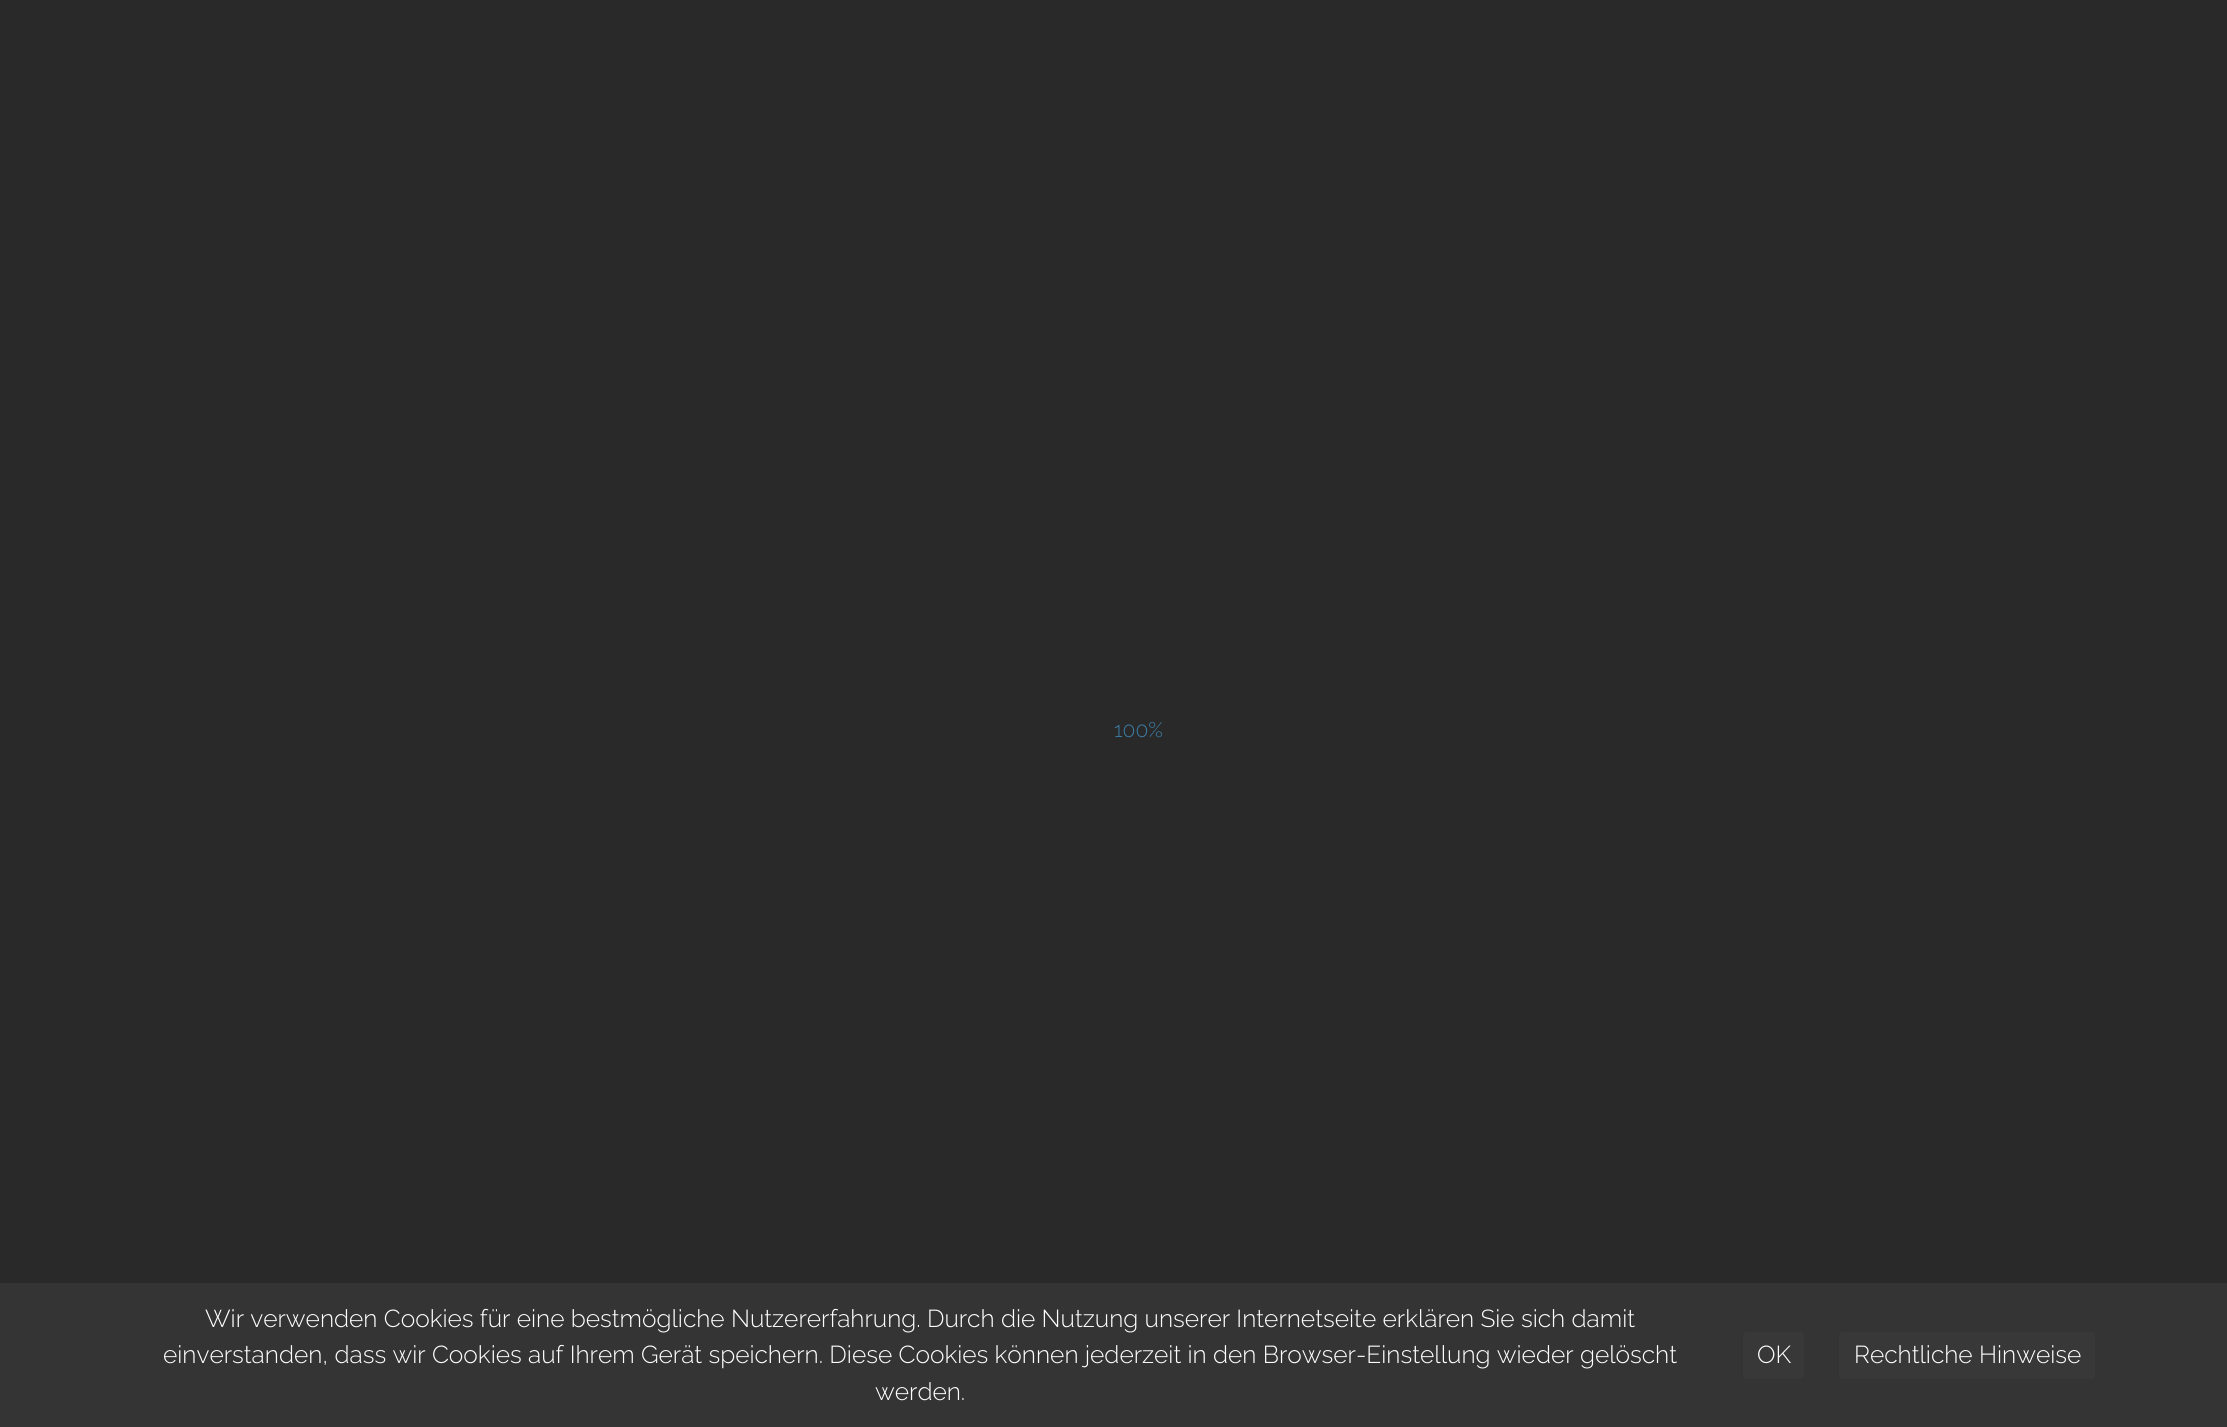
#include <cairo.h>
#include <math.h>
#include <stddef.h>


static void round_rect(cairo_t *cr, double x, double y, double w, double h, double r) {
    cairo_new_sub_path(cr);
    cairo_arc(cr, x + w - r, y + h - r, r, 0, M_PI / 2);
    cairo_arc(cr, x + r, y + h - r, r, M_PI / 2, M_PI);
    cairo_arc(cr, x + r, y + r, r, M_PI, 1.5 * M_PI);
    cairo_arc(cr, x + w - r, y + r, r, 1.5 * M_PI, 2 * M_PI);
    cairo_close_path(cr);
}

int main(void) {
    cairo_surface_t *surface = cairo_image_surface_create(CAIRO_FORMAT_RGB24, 2227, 1427);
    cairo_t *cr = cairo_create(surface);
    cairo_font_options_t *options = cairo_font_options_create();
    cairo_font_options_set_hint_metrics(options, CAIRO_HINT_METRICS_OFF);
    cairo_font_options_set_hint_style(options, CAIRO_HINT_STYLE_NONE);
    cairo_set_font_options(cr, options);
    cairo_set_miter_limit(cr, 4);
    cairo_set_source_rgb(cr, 0.161, 0.161, 0.161);
    cairo_paint(cr);
    cairo_select_font_face(cr, "Raleway Light", CAIRO_FONT_SLANT_NORMAL, CAIRO_FONT_WEIGHT_NORMAL);
    cairo_set_font_size(cr, 21);
    cairo_set_source_rgb(cr, 0.235, 0.486, 0.635);
    cairo_move_to(cr, 1114, 737);
    cairo_show_text(cr, "100%");
    cairo_set_source_rgb(cr, 0.204, 0.204, 0.204);
    cairo_rectangle(cr, 0, 1283, 2227, 144);
    cairo_fill(cr);
    cairo_set_font_size(cr, 24.5);
    cairo_set_source_rgb(cr, 1, 1, 1);
    cairo_move_to(cr, 205, 1327);
    cairo_show_text(cr, "Wir verwenden Cookies für eine bestmögliche Nutzererfahrung. Durch die Nutzung unserer Internetseite erklären Sie sich damit");
    cairo_move_to(cr, 163, 1363);
    cairo_show_text(cr, "einverstanden, dass wir Cookies auf Ihrem Gerät speichern. Diese Cookies können jederzeit in den Browser-Einstellung wieder gelöscht");
    cairo_move_to(cr, 875, 1400);
    cairo_show_text(cr, "werden.");
    cairo_set_source_rgb(cr, 0.22, 0.22, 0.22);
    round_rect(cr, 1743, 1332, 61, 47, 4);
    cairo_fill(cr);
    cairo_set_source_rgb(cr, 1, 1, 1);
    cairo_move_to(cr, 1757, 1363);
    cairo_show_text(cr, "OK");
    cairo_set_source_rgb(cr, 0.22, 0.22, 0.22);
    round_rect(cr, 1839, 1332, 256, 47, 4);
    cairo_fill(cr);
    cairo_set_source_rgb(cr, 1, 1, 1);
    cairo_move_to(cr, 1854, 1363);
    cairo_show_text(cr, "Rechtliche Hinweise");
    cairo_surface_write_to_png(surface, "page.png");
    cairo_font_options_destroy(options);
    cairo_destroy(cr);
    cairo_surface_destroy(surface);
    return 0;
}
